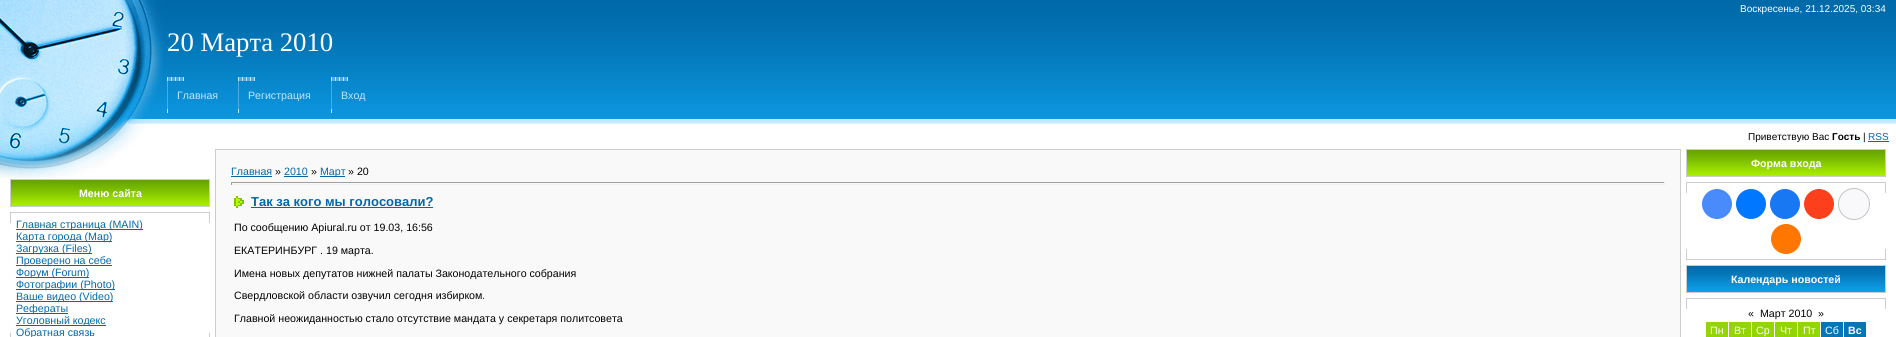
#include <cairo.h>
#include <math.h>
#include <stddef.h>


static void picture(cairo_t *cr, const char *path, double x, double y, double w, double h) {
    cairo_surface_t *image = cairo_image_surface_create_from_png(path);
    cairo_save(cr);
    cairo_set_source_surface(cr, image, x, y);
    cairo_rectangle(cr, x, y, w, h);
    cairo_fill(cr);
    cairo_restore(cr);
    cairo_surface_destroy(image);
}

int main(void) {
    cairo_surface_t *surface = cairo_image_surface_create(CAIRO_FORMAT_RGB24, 1896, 337);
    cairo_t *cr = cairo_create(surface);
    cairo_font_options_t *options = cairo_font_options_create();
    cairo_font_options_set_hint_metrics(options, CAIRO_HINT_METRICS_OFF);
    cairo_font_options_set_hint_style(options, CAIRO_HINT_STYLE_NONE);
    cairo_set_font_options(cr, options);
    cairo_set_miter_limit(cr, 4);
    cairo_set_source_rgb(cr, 1, 1, 1);
    cairo_paint(cr);
    picture(cr, "img1.png", 0, 124, 159, 54);
    picture(cr, "img2.png", 163, 0, 1733, 124);
    picture(cr, "img3.png", 0, 0, 163, 124);
    cairo_select_font_face(cr, "Liberation Sans", CAIRO_FONT_SLANT_NORMAL, CAIRO_FONT_WEIGHT_NORMAL);
    cairo_set_font_size(cr, 10);
    cairo_set_source_rgb(cr, 1, 1, 1);
    cairo_move_to(cr, 1740, 12);
    cairo_show_text(cr, "Воскресенье, 21.12.2025, 03:34");
    cairo_select_font_face(cr, "Liberation Serif", CAIRO_FONT_SLANT_NORMAL, CAIRO_FONT_WEIGHT_NORMAL);
    cairo_set_font_size(cr, 26.75);
    cairo_move_to(cr, 167, 51);
    cairo_show_text(cr, "20 Марта 2010");
    picture(cr, "img4.png", 167, 77, 17, 36);
    cairo_select_font_face(cr, "Liberation Sans", CAIRO_FONT_SLANT_NORMAL, CAIRO_FONT_WEIGHT_NORMAL);
    cairo_set_font_size(cr, 10.65);
    cairo_set_source_rgb(cr, 0.757, 0.906, 1);
    cairo_move_to(cr, 177, 99);
    cairo_show_text(cr, "Главная");
    picture(cr, "img4.png", 238, 77, 17, 36);
    cairo_move_to(cr, 248, 99);
    cairo_show_text(cr, "Регистрация");
    picture(cr, "img4.png", 331, 77, 17, 36);
    cairo_move_to(cr, 341, 99);
    cairo_show_text(cr, "Вход");
    cairo_set_font_size(cr, 10);
    cairo_set_source_rgb(cr, 0, 0, 0);
    cairo_move_to(cr, 1748, 140);
    cairo_show_text(cr, "Приветствую Вас");
    cairo_select_font_face(cr, "Liberation Sans", CAIRO_FONT_SLANT_NORMAL, CAIRO_FONT_WEIGHT_BOLD);
    cairo_move_to(cr, 1832, 140);
    cairo_show_text(cr, "Гость");
    cairo_select_font_face(cr, "Liberation Sans", CAIRO_FONT_SLANT_NORMAL, CAIRO_FONT_WEIGHT_NORMAL);
    cairo_move_to(cr, 1863, 140);
    cairo_show_text(cr, "|");
    cairo_set_source_rgb(cr, 0, 0.412, 0.663);
    cairo_move_to(cr, 1868, 140);
    cairo_show_text(cr, "RSS");
    cairo_rectangle(cr, 1868, 141, 21, 1);
    cairo_fill(cr);
    picture(cr, "img5.png", 11, 180, 198, 26);
    cairo_rectangle(cr, 10.5, 179.5, 199, 27);
    cairo_set_source_rgb(cr, 0.8, 0.8, 0.8);
    cairo_set_line_width(cr, 1);
    cairo_stroke(cr);
    cairo_select_font_face(cr, "Liberation Sans", CAIRO_FONT_SLANT_NORMAL, CAIRO_FONT_WEIGHT_BOLD);
    cairo_set_font_size(cr, 10.65);
    cairo_set_source_rgb(cr, 1, 1, 1);
    cairo_move_to(cr, 79, 197);
    cairo_show_text(cr, "Меню сайта");
    cairo_set_source_rgb(cr, 0.804, 0.804, 0.804);
    cairo_rectangle(cr, 10, 333, 1, 4);
    cairo_fill(cr);
    cairo_rectangle(cr, 10, 212, 1, 11);
    cairo_fill(cr);
    cairo_rectangle(cr, 11, 212, 198, 1);
    cairo_fill(cr);
    cairo_set_source_rgb(cr, 0, 0.412, 0.663);
    cairo_rectangle(cr, 16, 229, 127, 1);
    cairo_fill(cr);
    cairo_select_font_face(cr, "Liberation Sans", CAIRO_FONT_SLANT_NORMAL, CAIRO_FONT_WEIGHT_NORMAL);
    cairo_move_to(cr, 16, 228);
    cairo_show_text(cr, "Главная страница (MAIN)");
    cairo_rectangle(cr, 16, 241, 96, 1);
    cairo_fill(cr);
    cairo_move_to(cr, 16, 240);
    cairo_show_text(cr, "Карта города (Map)");
    cairo_rectangle(cr, 16, 253, 76, 1);
    cairo_fill(cr);
    cairo_move_to(cr, 16, 252);
    cairo_show_text(cr, "Загрузка (Files)");
    cairo_rectangle(cr, 16, 265, 96, 1);
    cairo_fill(cr);
    cairo_move_to(cr, 16, 264);
    cairo_show_text(cr, "Проверено на себе");
    cairo_rectangle(cr, 16, 277, 73, 1);
    cairo_fill(cr);
    cairo_move_to(cr, 16, 276);
    cairo_show_text(cr, "Форум (Forum)");
    cairo_rectangle(cr, 16, 289, 99, 1);
    cairo_fill(cr);
    cairo_move_to(cr, 16, 288);
    cairo_show_text(cr, "Фотографии (Photo)");
    cairo_rectangle(cr, 16, 301, 97, 1);
    cairo_fill(cr);
    cairo_move_to(cr, 16, 300);
    cairo_show_text(cr, "Ваше видео (Video)");
    cairo_rectangle(cr, 16, 313, 52, 1);
    cairo_fill(cr);
    cairo_move_to(cr, 16, 312);
    cairo_show_text(cr, "Рефераты");
    cairo_rectangle(cr, 16, 325, 90, 1);
    cairo_fill(cr);
    cairo_move_to(cr, 16, 324);
    cairo_show_text(cr, "Уголовный кодекс");
    cairo_move_to(cr, 16, 336);
    cairo_show_text(cr, "Обратная связь");
    cairo_set_source_rgb(cr, 0.804, 0.804, 0.804);
    cairo_rectangle(cr, 209, 333, 1, 4);
    cairo_fill(cr);
    cairo_rectangle(cr, 209, 212, 1, 11);
    cairo_fill(cr);
    cairo_rectangle(cr, 215.5, 149.5, 1465, 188);
    cairo_set_source_rgb(cr, 0.8, 0.8, 0.8);
    cairo_stroke(cr);
    cairo_set_source_rgb(cr, 0.973, 0.973, 0.973);
    cairo_rectangle(cr, 216, 150, 1464, 187);
    cairo_fill(cr);
    cairo_set_source_rgb(cr, 0, 0.412, 0.663);
    cairo_move_to(cr, 231, 175);
    cairo_show_text(cr, "Главная");
    cairo_rectangle(cr, 231, 176, 41, 1);
    cairo_fill(cr);
    cairo_set_source_rgb(cr, 0, 0, 0);
    cairo_move_to(cr, 275, 175);
    cairo_show_text(cr, "»");
    cairo_set_source_rgb(cr, 0, 0.412, 0.663);
    cairo_move_to(cr, 284, 175);
    cairo_show_text(cr, "2010");
    cairo_rectangle(cr, 284, 176, 24, 1);
    cairo_fill(cr);
    cairo_set_source_rgb(cr, 0, 0, 0);
    cairo_move_to(cr, 311, 175);
    cairo_show_text(cr, "»");
    cairo_set_source_rgb(cr, 0, 0.412, 0.663);
    cairo_rectangle(cr, 320, 176, 25, 1);
    cairo_fill(cr);
    cairo_move_to(cr, 320, 175);
    cairo_show_text(cr, "Март");
    cairo_set_source_rgb(cr, 0, 0, 0);
    cairo_move_to(cr, 348, 175);
    cairo_show_text(cr, "» 20");
    cairo_set_source_rgb(cr, 0.624, 0.624, 0.624);
    cairo_rectangle(cr, 231, 182, 1434, 1);
    cairo_fill(cr);
    cairo_set_source_rgb(cr, 0.933, 0.933, 0.933);
    cairo_rectangle(cr, 1664, 182, 1, 3);
    cairo_fill(cr);
    cairo_rectangle(cr, 231, 184, 1434, 1);
    cairo_fill(cr);
    cairo_set_source_rgb(cr, 0.624, 0.624, 0.624);
    cairo_rectangle(cr, 231, 182, 1, 3);
    cairo_fill(cr);
    picture(cr, "img6.png", 234, 196, 10, 12);
    cairo_select_font_face(cr, "Liberation Sans", CAIRO_FONT_SLANT_NORMAL, CAIRO_FONT_WEIGHT_BOLD);
    cairo_set_font_size(cr, 13);
    cairo_set_source_rgb(cr, 0, 0.412, 0.663);
    cairo_move_to(cr, 251, 206);
    cairo_show_text(cr, "Так за кого мы голосовали?");
    cairo_rectangle(cr, 251, 207, 182, 1);
    cairo_fill(cr);
    cairo_select_font_face(cr, "Liberation Sans", CAIRO_FONT_SLANT_NORMAL, CAIRO_FONT_WEIGHT_NORMAL);
    cairo_set_font_size(cr, 10.65);
    cairo_set_source_rgb(cr, 0, 0, 0);
    cairo_move_to(cr, 234, 231);
    cairo_show_text(cr, "По сообщению Apiural.ru от 19.03, 16:56");
    cairo_move_to(cr, 234, 254);
    cairo_show_text(cr, "ЕКАТЕРИНБУРГ . 19 марта.");
    cairo_move_to(cr, 234, 277);
    cairo_show_text(cr, "Имена новых депутатов нижней палаты Законодательного собрания");
    cairo_move_to(cr, 234, 299);
    cairo_show_text(cr, "Свердловской области озвучил сегодня избирком.");
    cairo_move_to(cr, 234, 322);
    cairo_show_text(cr, "Главной неожиданностью стало отсутствие мандата у секретаря политсовета");
    picture(cr, "img5.png", 1687, 150, 198, 26);
    cairo_rectangle(cr, 1686.5, 149.5, 199, 27);
    cairo_set_source_rgb(cr, 0.8, 0.8, 0.8);
    cairo_stroke(cr);
    cairo_select_font_face(cr, "Liberation Sans", CAIRO_FONT_SLANT_NORMAL, CAIRO_FONT_WEIGHT_BOLD);
    cairo_set_source_rgb(cr, 1, 1, 1);
    cairo_move_to(cr, 1751, 167);
    cairo_show_text(cr, "Форма входа");
    cairo_set_source_rgb(cr, 0.804, 0.804, 0.804);
    cairo_rectangle(cr, 1686, 249, 1, 11);
    cairo_fill(cr);
    cairo_rectangle(cr, 1686, 182, 1, 11);
    cairo_fill(cr);
    cairo_rectangle(cr, 1687, 182, 198, 1);
    cairo_fill(cr);
    cairo_rectangle(cr, 1687, 259, 198, 1);
    cairo_fill(cr);
    cairo_set_source_rgb(cr, 0.286, 0.545, 0.98);
    cairo_arc(cr, 1717, 204, 15, 0, 2 * M_PI);
    cairo_fill(cr);
    cairo_set_source_rgb(cr, 0, 0.467, 1);
    cairo_arc(cr, 1751, 204, 15, 0, 2 * M_PI);
    cairo_fill(cr);
    cairo_set_source_rgb(cr, 0.094, 0.467, 0.949);
    cairo_arc(cr, 1785, 204, 15, 0, 2 * M_PI);
    cairo_fill(cr);
    cairo_set_source_rgb(cr, 0.988, 0.247, 0.114);
    cairo_arc(cr, 1819, 204, 15, 0, 2 * M_PI);
    cairo_fill(cr);
    cairo_set_source_rgb(cr, 0.973, 0.973, 0.988);
    cairo_arc(cr, 1854, 204, 15.5, 0, 2 * M_PI);
    cairo_fill_preserve(cr);
    cairo_set_source_rgb(cr, 0.769, 0.769, 0.769);
    cairo_stroke(cr);
    cairo_set_source_rgb(cr, 1, 0.467, 0);
    cairo_arc(cr, 1786, 239, 15, 0, 2 * M_PI);
    cairo_fill(cr);
    cairo_set_source_rgb(cr, 0.804, 0.804, 0.804);
    cairo_rectangle(cr, 1885, 249, 1, 11);
    cairo_fill(cr);
    cairo_rectangle(cr, 1885, 182, 1, 11);
    cairo_fill(cr);
    picture(cr, "img7.png", 1687, 266, 198, 26);
    cairo_rectangle(cr, 1686.5, 265.5, 199, 27);
    cairo_set_source_rgb(cr, 0.8, 0.8, 0.8);
    cairo_stroke(cr);
    cairo_set_source_rgb(cr, 1, 1, 1);
    cairo_move_to(cr, 1731, 283);
    cairo_show_text(cr, "Календарь новостей");
    cairo_set_source_rgb(cr, 0.804, 0.804, 0.804);
    cairo_rectangle(cr, 1686, 298, 1, 11);
    cairo_fill(cr);
    cairo_rectangle(cr, 1885, 298, 1, 11);
    cairo_fill(cr);
    cairo_rectangle(cr, 1687, 298, 198, 1);
    cairo_fill(cr);
    cairo_select_font_face(cr, "Liberation Sans", CAIRO_FONT_SLANT_NORMAL, CAIRO_FONT_WEIGHT_NORMAL);
    cairo_set_source_rgb(cr, 0, 0, 0);
    cairo_move_to(cr, 1748, 317);
    cairo_show_text(cr, "«");
    cairo_move_to(cr, 1760, 317);
    cairo_show_text(cr, "Март 2010");
    cairo_move_to(cr, 1818, 317);
    cairo_show_text(cr, "»");
    cairo_set_source_rgb(cr, 0.573, 0.835, 0);
    cairo_rectangle(cr, 1706, 322, 22, 15);
    cairo_fill(cr);
    cairo_set_source_rgb(cr, 1, 1, 1);
    cairo_move_to(cr, 1710, 334);
    cairo_show_text(cr, "Пн");
    cairo_set_source_rgb(cr, 0.573, 0.835, 0);
    cairo_rectangle(cr, 1729, 322, 22, 15);
    cairo_fill(cr);
    cairo_set_source_rgb(cr, 1, 1, 1);
    cairo_move_to(cr, 1734, 334);
    cairo_show_text(cr, "Вт");
    cairo_set_source_rgb(cr, 0.573, 0.835, 0);
    cairo_rectangle(cr, 1752, 322, 22, 15);
    cairo_fill(cr);
    cairo_set_source_rgb(cr, 1, 1, 1);
    cairo_move_to(cr, 1756, 334);
    cairo_show_text(cr, "Ср");
    cairo_set_source_rgb(cr, 0.573, 0.835, 0);
    cairo_rectangle(cr, 1775, 322, 22, 15);
    cairo_fill(cr);
    cairo_set_source_rgb(cr, 1, 1, 1);
    cairo_move_to(cr, 1780, 334);
    cairo_show_text(cr, "Чт");
    cairo_set_source_rgb(cr, 0.573, 0.835, 0);
    cairo_rectangle(cr, 1798, 322, 22, 15);
    cairo_fill(cr);
    cairo_set_source_rgb(cr, 1, 1, 1);
    cairo_move_to(cr, 1803, 334);
    cairo_show_text(cr, "Пт");
    cairo_set_source_rgb(cr, 0.012, 0.463, 0.722);
    cairo_rectangle(cr, 1821, 322, 22, 15);
    cairo_fill(cr);
    cairo_set_source_rgb(cr, 1, 1, 1);
    cairo_move_to(cr, 1825, 334);
    cairo_show_text(cr, "Сб");
    cairo_set_source_rgb(cr, 0.012, 0.463, 0.722);
    cairo_rectangle(cr, 1844, 322, 22, 15);
    cairo_fill(cr);
    cairo_select_font_face(cr, "Liberation Sans", CAIRO_FONT_SLANT_NORMAL, CAIRO_FONT_WEIGHT_BOLD);
    cairo_set_source_rgb(cr, 1, 1, 1);
    cairo_move_to(cr, 1848, 334);
    cairo_show_text(cr, "Вс");
    cairo_surface_write_to_png(surface, "page.png");
    cairo_font_options_destroy(options);
    cairo_destroy(cr);
    cairo_surface_destroy(surface);
    return 0;
}
